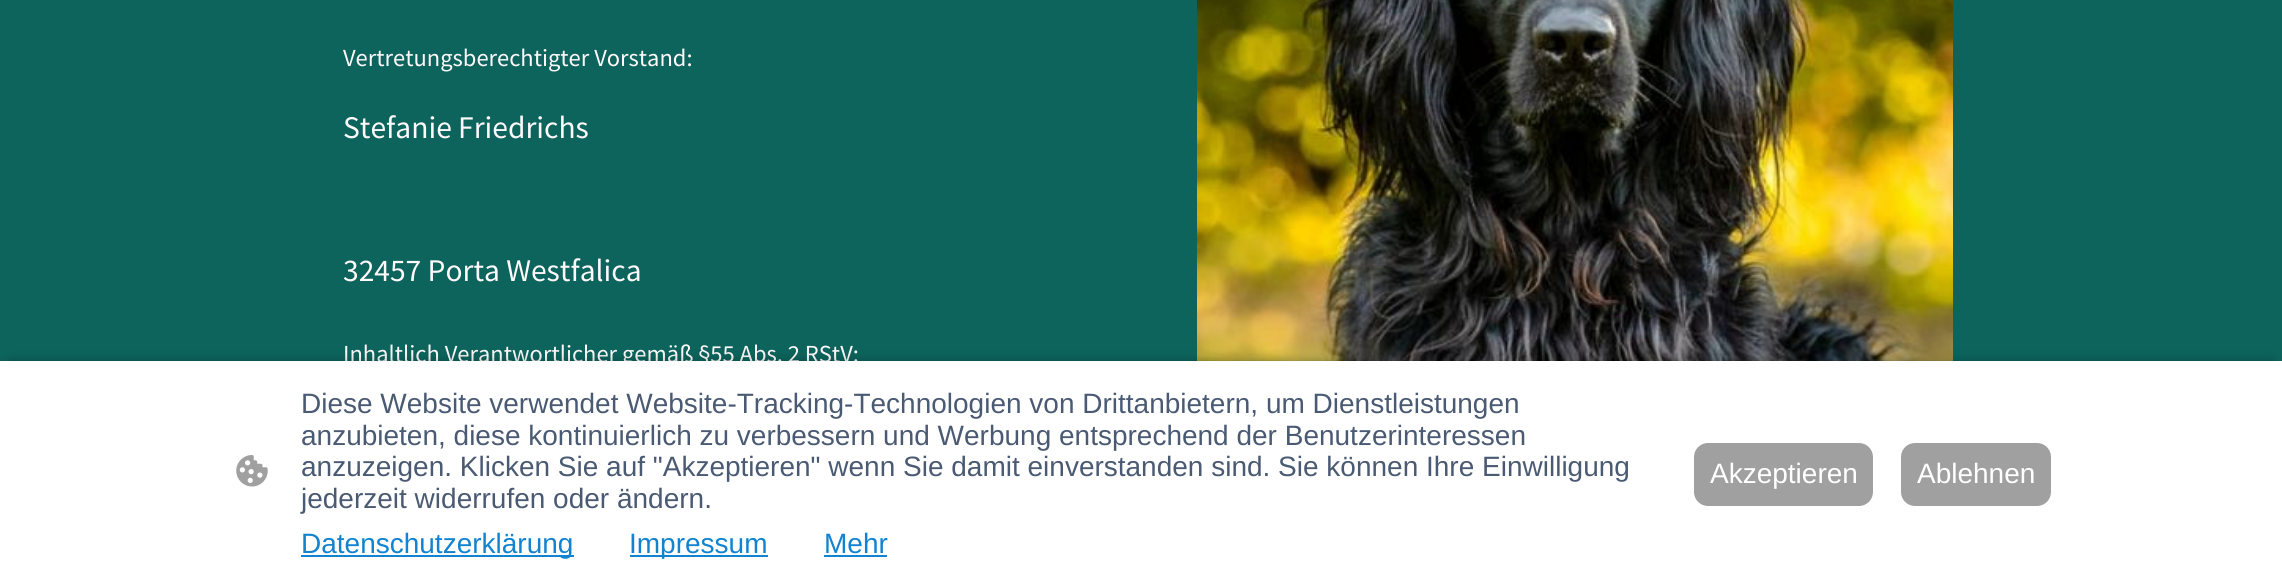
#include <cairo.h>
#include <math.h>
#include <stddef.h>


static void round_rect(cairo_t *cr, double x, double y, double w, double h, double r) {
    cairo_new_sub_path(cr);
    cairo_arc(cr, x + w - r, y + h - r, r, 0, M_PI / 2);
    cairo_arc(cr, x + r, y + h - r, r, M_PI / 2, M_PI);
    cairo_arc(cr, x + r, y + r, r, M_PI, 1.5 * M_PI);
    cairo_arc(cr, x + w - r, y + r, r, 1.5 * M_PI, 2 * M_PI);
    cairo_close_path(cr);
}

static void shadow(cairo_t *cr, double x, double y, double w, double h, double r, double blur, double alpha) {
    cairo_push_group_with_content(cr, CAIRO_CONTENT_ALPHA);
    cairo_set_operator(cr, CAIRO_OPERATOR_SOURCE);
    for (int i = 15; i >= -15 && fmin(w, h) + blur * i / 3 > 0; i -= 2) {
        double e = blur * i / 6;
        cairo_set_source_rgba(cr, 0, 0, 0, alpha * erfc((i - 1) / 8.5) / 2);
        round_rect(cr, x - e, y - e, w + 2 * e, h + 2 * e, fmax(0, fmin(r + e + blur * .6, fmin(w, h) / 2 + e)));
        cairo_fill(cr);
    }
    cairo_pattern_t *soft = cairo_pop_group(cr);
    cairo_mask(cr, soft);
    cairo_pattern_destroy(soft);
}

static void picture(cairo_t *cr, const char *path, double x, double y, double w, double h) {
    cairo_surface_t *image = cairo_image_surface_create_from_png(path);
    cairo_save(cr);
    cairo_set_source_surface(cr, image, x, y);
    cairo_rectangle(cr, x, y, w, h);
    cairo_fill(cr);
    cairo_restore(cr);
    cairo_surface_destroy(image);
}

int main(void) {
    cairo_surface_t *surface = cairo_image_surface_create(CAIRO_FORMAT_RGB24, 2282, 588);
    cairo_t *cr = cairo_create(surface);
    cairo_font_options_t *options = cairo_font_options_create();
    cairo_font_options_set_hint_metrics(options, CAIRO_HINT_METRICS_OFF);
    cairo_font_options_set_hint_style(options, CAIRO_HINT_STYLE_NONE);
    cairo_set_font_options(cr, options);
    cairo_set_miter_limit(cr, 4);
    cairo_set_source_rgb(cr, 0.047, 0.392, 0.361);
    cairo_paint(cr);
    cairo_select_font_face(cr, "Source Sans Pro", CAIRO_FONT_SLANT_NORMAL, CAIRO_FONT_WEIGHT_NORMAL);
    cairo_set_font_size(cr, 24.5);
    cairo_set_source_rgb(cr, 0.996, 0.976, 0.98);
    cairo_move_to(cr, 343, 66);
    cairo_show_text(cr, "Vertretungsberechtigter Vorstand:");
    cairo_set_font_size(cr, 31.5);
    cairo_move_to(cr, 343, 138);
    cairo_show_text(cr, "Stefanie Friedrichs");
    cairo_move_to(cr, 343, 281);
    cairo_show_text(cr, "32457 Porta Westfalica");
    cairo_set_font_size(cr, 24.5);
    cairo_move_to(cr, 343, 362);
    cairo_show_text(cr, "Inhaltlich Verantwortlicher gemäß §55 Abs. 2 RStV:");
    picture(cr, "img1.png", 1197, 0, 756, 361);
    cairo_set_source_rgb(cr, 0, 0, 0);
    shadow(cr, 11, 366, 2261, 206, 0, 7, 0.63);
    cairo_set_source_rgb(cr, 1, 1, 1);
    cairo_rectangle(cr, 0, 361, 2282, 227);
    cairo_fill(cr);
    picture(cr, "img2.png", 236, 455, 32, 32);
    cairo_select_font_face(cr, "Liberation Sans", CAIRO_FONT_SLANT_NORMAL, CAIRO_FONT_WEIGHT_NORMAL);
    cairo_set_font_size(cr, 28);
    cairo_set_source_rgb(cr, 0.29, 0.353, 0.451);
    cairo_move_to(cr, 301, 413);
    cairo_show_text(cr, "Diese Website verwendet Website-Tracking-Technologien von Drittanbietern, um Dienstleistungen");
    cairo_move_to(cr, 301, 445);
    cairo_show_text(cr, "anzubieten, diese kontinuierlich zu verbessern und Werbung entsprechend der Benutzerinteressen");
    cairo_move_to(cr, 301, 476);
    cairo_show_text(cr, "anzuzeigen. Klicken Sie auf \"Akzeptieren\" wenn Sie damit einverstanden sind. Sie können Ihre Einwilligung");
    cairo_move_to(cr, 301, 508);
    cairo_show_text(cr, "jederzeit widerrufen oder ändern.");
    cairo_set_source_rgb(cr, 0.067, 0.514, 0.82);
    cairo_rectangle(cr, 301, 555, 273, 2);
    cairo_fill(cr);
    cairo_move_to(cr, 301, 553);
    cairo_show_text(cr, "Datenschutzerklärung");
    cairo_rectangle(cr, 630, 555, 138, 2);
    cairo_fill(cr);
    cairo_move_to(cr, 629, 553);
    cairo_show_text(cr, "Impressum");
    cairo_move_to(cr, 824, 553);
    cairo_show_text(cr, "Mehr");
    cairo_rectangle(cr, 824, 555, 63, 2);
    cairo_fill(cr);
    cairo_set_source_rgb(cr, 0.627, 0.627, 0.627);
    round_rect(cr, 1695, 444, 177, 61, 13);
    cairo_fill_preserve(cr);
    cairo_stroke(cr);
    cairo_set_source_rgb(cr, 1, 1, 1);
    cairo_move_to(cr, 1710, 483);
    cairo_show_text(cr, "Akzeptieren");
    cairo_set_source_rgb(cr, 0.627, 0.627, 0.627);
    round_rect(cr, 1902, 444, 148, 61, 13);
    cairo_fill_preserve(cr);
    cairo_stroke(cr);
    cairo_set_source_rgb(cr, 1, 1, 1);
    cairo_move_to(cr, 1917, 483);
    cairo_show_text(cr, "Ablehnen");
    cairo_surface_write_to_png(surface, "page.png");
    cairo_font_options_destroy(options);
    cairo_destroy(cr);
    cairo_surface_destroy(surface);
    return 0;
}
